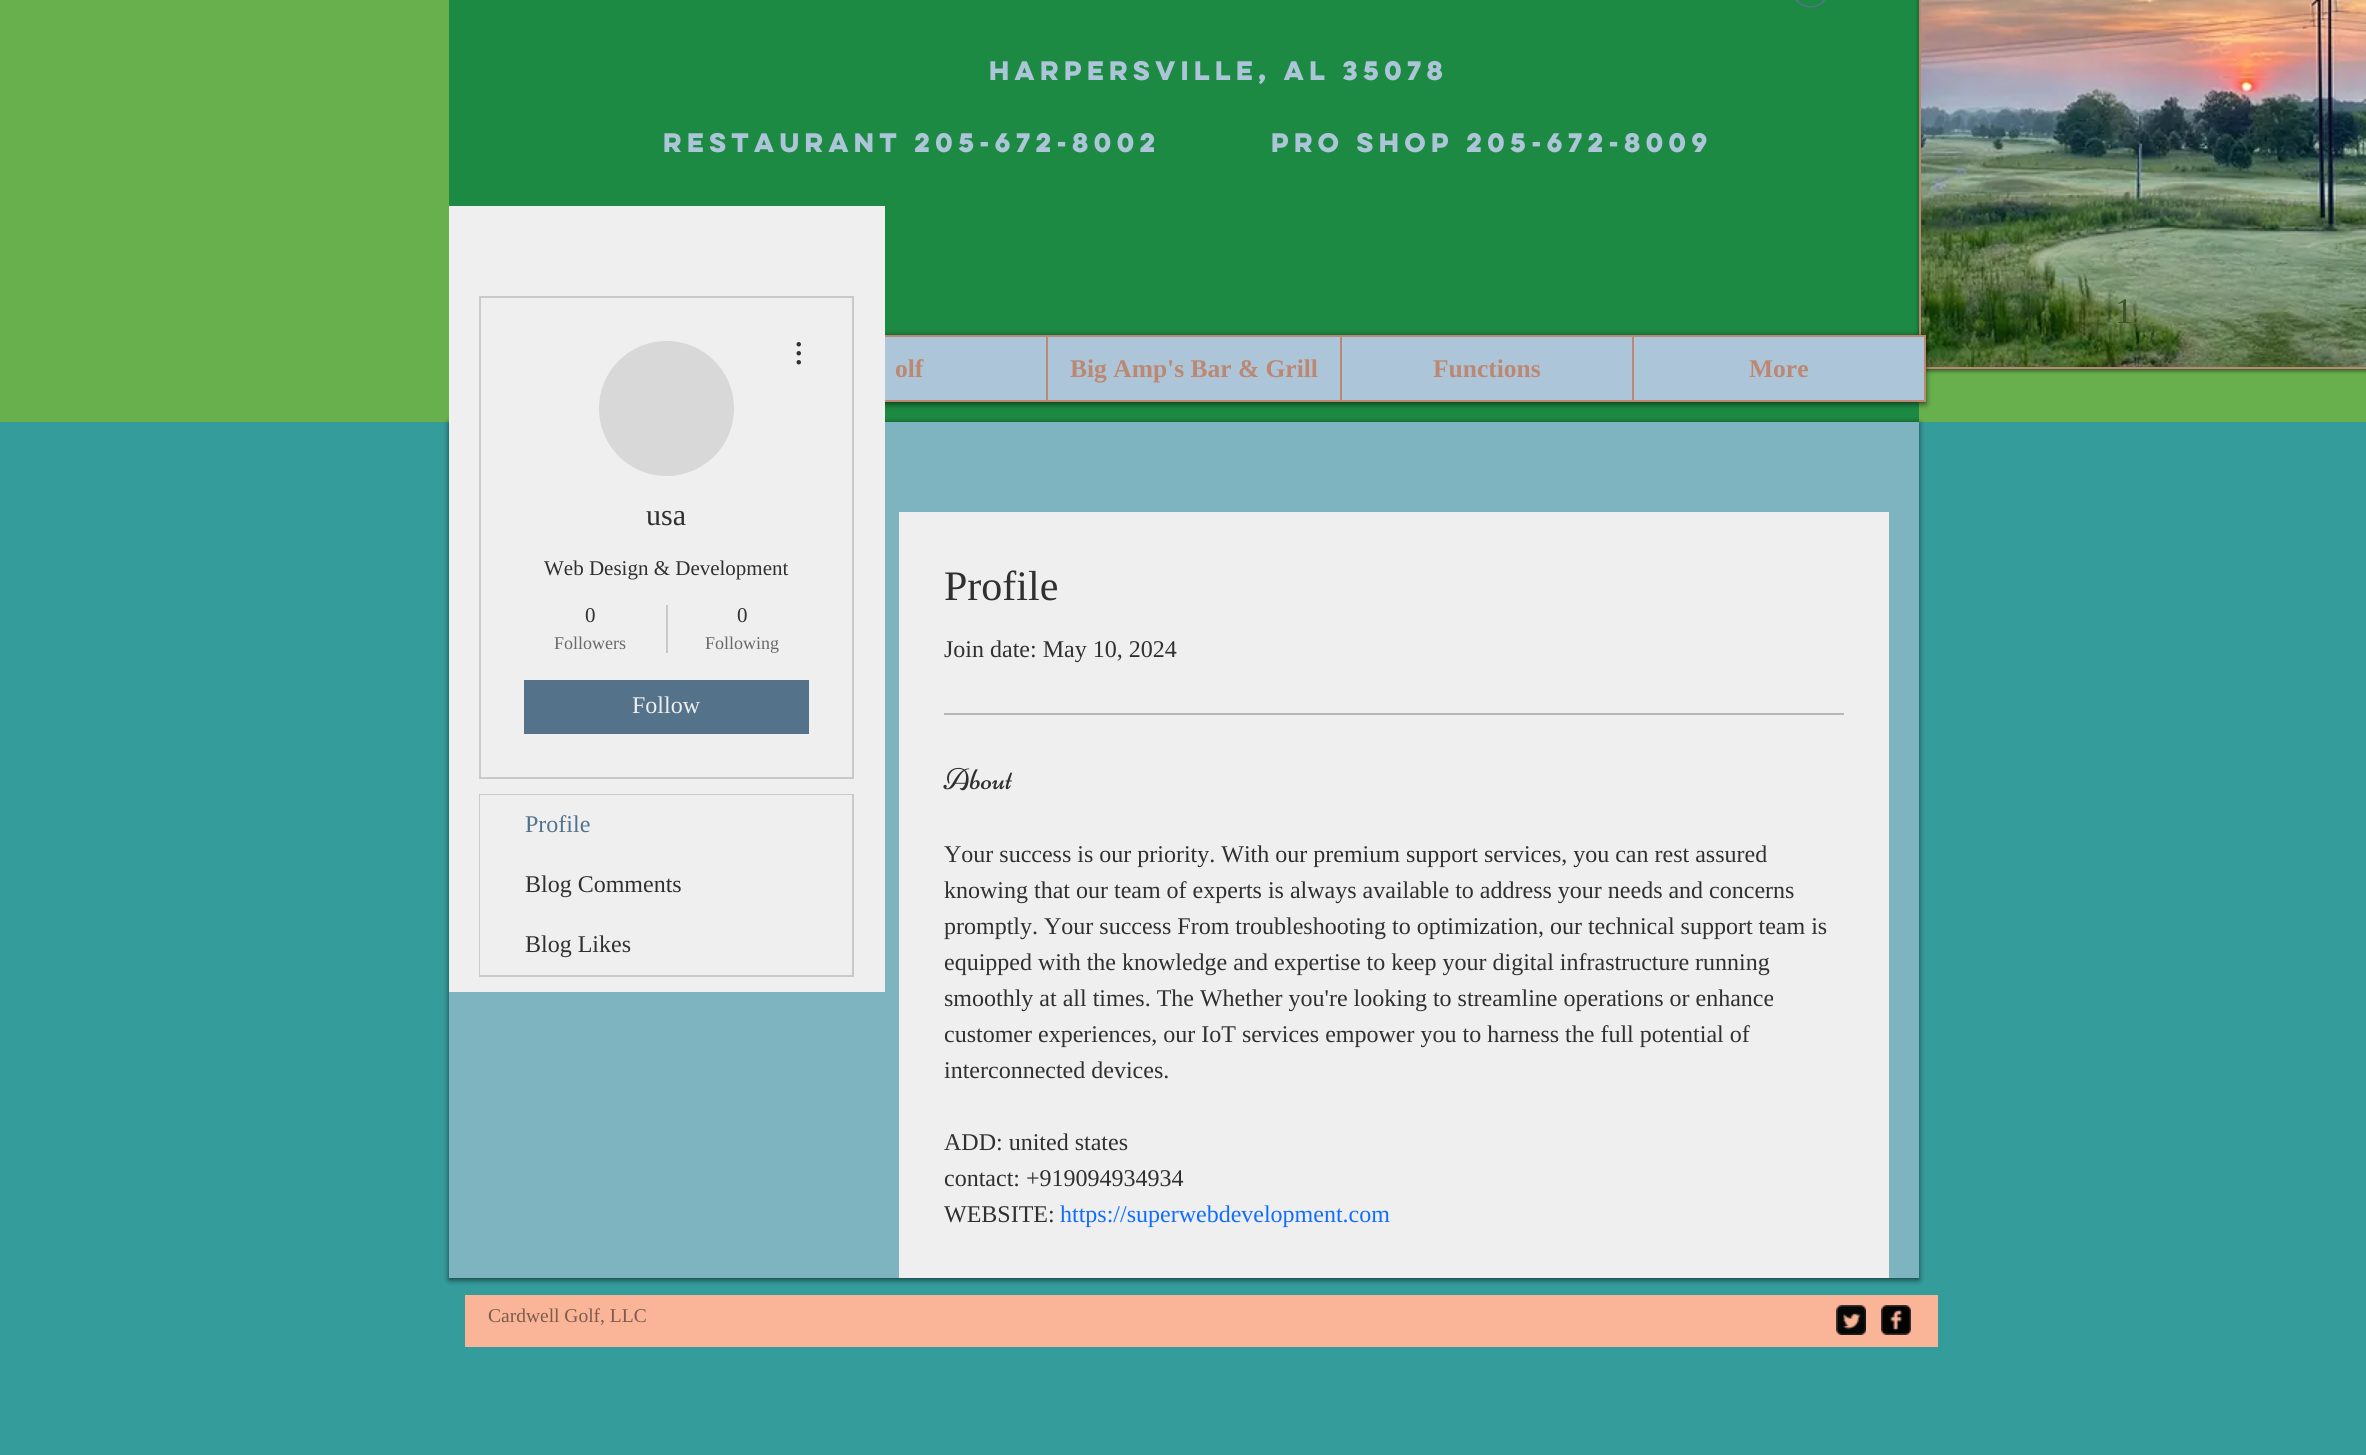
#include <cairo.h>
#include <math.h>
#include <stddef.h>


static void round_rect(cairo_t *cr, double x, double y, double w, double h, double r) {
    cairo_new_sub_path(cr);
    cairo_arc(cr, x + w - r, y + h - r, r, 0, M_PI / 2);
    cairo_arc(cr, x + r, y + h - r, r, M_PI / 2, M_PI);
    cairo_arc(cr, x + r, y + r, r, M_PI, 1.5 * M_PI);
    cairo_arc(cr, x + w - r, y + r, r, 1.5 * M_PI, 2 * M_PI);
    cairo_close_path(cr);
}

static void shadow(cairo_t *cr, double x, double y, double w, double h, double r, double blur, double alpha) {
    cairo_push_group_with_content(cr, CAIRO_CONTENT_ALPHA);
    cairo_set_operator(cr, CAIRO_OPERATOR_SOURCE);
    for (int i = 15; i >= -15 && fmin(w, h) + blur * i / 3 > 0; i -= 2) {
        double e = blur * i / 6;
        cairo_set_source_rgba(cr, 0, 0, 0, alpha * erfc((i - 1) / 8.5) / 2);
        round_rect(cr, x - e, y - e, w + 2 * e, h + 2 * e, fmax(0, fmin(r + e + blur * .6, fmin(w, h) / 2 + e)));
        cairo_fill(cr);
    }
    cairo_pattern_t *soft = cairo_pop_group(cr);
    cairo_mask(cr, soft);
    cairo_pattern_destroy(soft);
}

static void picture(cairo_t *cr, const char *path, double x, double y, double w, double h) {
    cairo_surface_t *image = cairo_image_surface_create_from_png(path);
    cairo_save(cr);
    cairo_set_source_surface(cr, image, x, y);
    cairo_rectangle(cr, x, y, w, h);
    cairo_fill(cr);
    cairo_restore(cr);
    cairo_surface_destroy(image);
}

int main(void) {
    cairo_surface_t *surface = cairo_image_surface_create(CAIRO_FORMAT_RGB24, 2366, 1455);
    cairo_t *cr = cairo_create(surface);
    cairo_font_options_t *options = cairo_font_options_create();
    cairo_font_options_set_hint_metrics(options, CAIRO_HINT_METRICS_OFF);
    cairo_font_options_set_hint_style(options, CAIRO_HINT_STYLE_NONE);
    cairo_set_font_options(cr, options);
    cairo_set_miter_limit(cr, 4);
    cairo_set_source_rgb(cr, 0.208, 0.612, 0.612);
    cairo_paint(cr);
    cairo_set_source_rgb(cr, 0.408, 0.69, 0.302);
    cairo_rectangle(cr, 0, 0, 2366, 422);
    cairo_fill(cr);
    cairo_set_source_rgb(cr, 0.11, 0.541, 0.263);
    cairo_rectangle(cr, 449, 0, 1470, 422);
    cairo_fill(cr);
    picture(cr, "img1.png", 1795, 0, 31, 8);
    cairo_select_font_face(cr, "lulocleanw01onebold", CAIRO_FONT_SLANT_NORMAL, CAIRO_FONT_WEIGHT_BOLD);
    cairo_set_font_size(cr, 24);
    cairo_set_source_rgb(cr, 0.678, 0.773, 0.847);
    cairo_move_to(cr, 989, 80);
    cairo_show_text(cr, "Harpersville, AL 35078");
    cairo_move_to(cr, 663, 152);
    cairo_show_text(cr, "Restaurant 205-672-8002         Pro Shop 205-672-8009");
    cairo_set_source_rgb(cr, 0, 0, 0);
    shadow(cr, 1919, -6, 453, 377, 0, 2, 0.5);
    picture(cr, "img2.png", 1921, 0, 445, 367);
    cairo_rectangle(cr, 1920, -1, 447, 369);
    cairo_set_source_rgb(cr, 0.737, 0.533, 0.447);
    cairo_stroke(cr);
    cairo_select_font_face(cr, "Liberation Serif", CAIRO_FONT_SLANT_NORMAL, CAIRO_FONT_WEIGHT_NORMAL);
    cairo_set_font_size(cr, 36);
    cairo_set_source_rgb(cr, 0.231, 0.337, 0.141);
    cairo_move_to(cr, 2115, 323);
    cairo_show_text(cr, "1");
    cairo_set_source_rgb(cr, 0, 0, 0);
    shadow(cr, 456, 336, 1470, 68, 0, 3, 0.6);
    cairo_set_source_rgb(cr, 0.678, 0.773, 0.847);
    cairo_rectangle(cr, 885, 337, 1039, 63);
    cairo_fill(cr);
    cairo_rectangle(cr, 457, 336, 1468, 65);
    cairo_set_source_rgb(cr, 0.737, 0.533, 0.447);
    cairo_stroke(cr);
    cairo_select_font_face(cr, "Liberation Serif", CAIRO_FONT_SLANT_NORMAL, CAIRO_FONT_WEIGHT_BOLD);
    cairo_set_font_size(cr, 25.5);
    cairo_move_to(cr, 895, 377);
    cairo_show_text(cr, "olf");
    cairo_rectangle(cr, 1046, 336, 2, 65);
    cairo_fill(cr);
    cairo_move_to(cr, 1070, 377);
    cairo_show_text(cr, "Big Amp's Bar & Grill");
    cairo_rectangle(cr, 1340, 336, 2, 65);
    cairo_fill(cr);
    cairo_move_to(cr, 1433, 377);
    cairo_show_text(cr, "Functions");
    cairo_rectangle(cr, 1632, 336, 2, 65);
    cairo_fill(cr);
    cairo_move_to(cr, 1749, 377);
    cairo_show_text(cr, "More");
    cairo_save(cr);
    cairo_set_fill_rule(cr, CAIRO_FILL_RULE_EVEN_ODD);
    cairo_new_path(cr);
    cairo_move_to(cr, 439, 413);
    cairo_line_to(cr, 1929, 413);
    cairo_line_to(cr, 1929, 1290);
    cairo_line_to(cr, 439, 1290);
    cairo_close_path(cr);
    cairo_move_to(cr, 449, 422);
    cairo_line_to(cr, 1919, 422);
    cairo_line_to(cr, 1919, 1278);
    cairo_line_to(cr, 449, 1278);
    cairo_close_path(cr);
    cairo_clip(cr);
    cairo_set_source_rgb(cr, 0, 0, 0);
    shadow(cr, 449, 423, 1470, 857, 0, 3, 0.6);
    cairo_restore(cr);
    cairo_set_source_rgba(cr, 0.678, 0.773, 0.847, 0.6);
    cairo_rectangle(cr, 449, 422, 1470, 856);
    cairo_fill(cr);
    cairo_set_source_rgb(cr, 0.937, 0.937, 0.937);
    cairo_rectangle(cr, 449, 206, 436, 786);
    cairo_fill(cr);
    cairo_rectangle(cr, 480, 297, 373, 481);
    cairo_set_source_rgb(cr, 0.788, 0.788, 0.788);
    cairo_stroke(cr);
    cairo_set_source_rgb(cr, 0.847, 0.847, 0.847);
    cairo_arc(cr, 666.5, 408.5, 67.5, 0, 2 * M_PI);
    cairo_fill(cr);
    picture(cr, "img3.png", 796, 342, 5, 23);
    cairo_select_font_face(cr, "Liberation Serif", CAIRO_FONT_SLANT_NORMAL, CAIRO_FONT_WEIGHT_NORMAL);
    cairo_set_font_size(cr, 30);
    cairo_set_source_rgb(cr, 0.188, 0.188, 0.188);
    cairo_move_to(cr, 646, 525);
    cairo_show_text(cr, "usa");
    cairo_set_font_size(cr, 21);
    cairo_move_to(cr, 544, 575);
    cairo_show_text(cr, "Web Design & Development");
    cairo_move_to(cr, 585, 622);
    cairo_show_text(cr, "0");
    cairo_set_font_size(cr, 18);
    cairo_set_source_rgb(cr, 0.412, 0.412, 0.412);
    cairo_move_to(cr, 554, 649);
    cairo_show_text(cr, "Followers");
    cairo_set_source_rgb(cr, 0.788, 0.788, 0.788);
    cairo_rectangle(cr, 666, 605, 2, 48);
    cairo_fill(cr);
    cairo_set_font_size(cr, 21);
    cairo_set_source_rgb(cr, 0.188, 0.188, 0.188);
    cairo_move_to(cr, 737, 622);
    cairo_show_text(cr, "0");
    cairo_set_font_size(cr, 18);
    cairo_set_source_rgb(cr, 0.412, 0.412, 0.412);
    cairo_move_to(cr, 705, 649);
    cairo_show_text(cr, "Following");
    cairo_set_source_rgb(cr, 0.329, 0.447, 0.541);
    cairo_rectangle(cr, 524, 680, 285, 54);
    cairo_fill(cr);
    cairo_set_font_size(cr, 24);
    cairo_set_source_rgb(cr, 0.937, 0.937, 0.937);
    cairo_move_to(cr, 632, 713);
    cairo_show_text(cr, "Follow");
    cairo_rectangle(cr, 480, 795, 373, 181);
    cairo_set_source_rgb(cr, 0.788, 0.788, 0.788);
    cairo_stroke(cr);
    cairo_set_source_rgb(cr, 0.937, 0.937, 0.937);
    cairo_rectangle(cr, 480, 795, 372, 60);
    cairo_fill(cr);
    cairo_set_source_rgb(cr, 0.329, 0.447, 0.541);
    cairo_move_to(cr, 525, 832);
    cairo_show_text(cr, "Profile");
    cairo_set_source_rgb(cr, 0.937, 0.937, 0.937);
    cairo_rectangle(cr, 480, 855, 1, 120);
    cairo_fill(cr);
    cairo_set_source_rgb(cr, 0.188, 0.188, 0.188);
    cairo_move_to(cr, 525, 892);
    cairo_show_text(cr, "Blog Comments");
    cairo_move_to(cr, 525, 952);
    cairo_show_text(cr, "Blog Likes");
    cairo_set_source_rgb(cr, 0.937, 0.937, 0.937);
    cairo_rectangle(cr, 899, 512, 990, 766);
    cairo_fill(cr);
    cairo_set_font_size(cr, 42);
    cairo_set_source_rgb(cr, 0.188, 0.188, 0.188);
    cairo_move_to(cr, 944, 600);
    cairo_show_text(cr, "Profile");
    cairo_set_font_size(cr, 24);
    cairo_move_to(cr, 944, 657);
    cairo_show_text(cr, "Join date: May 10, 2024");
    cairo_set_source_rgb(cr, 0.714, 0.714, 0.714);
    cairo_rectangle(cr, 944, 713, 900, 2);
    cairo_fill(cr);
    picture(cr, "img4.png", 943, 767, 70, 24);
    cairo_set_source_rgb(cr, 0.188, 0.188, 0.188);
    cairo_move_to(cr, 944, 862);
    cairo_show_text(cr, "Your success is our priority. With our premium support services, you can rest assured");
    cairo_move_to(cr, 944, 898);
    cairo_show_text(cr, "knowing that our team of experts is always available to address your needs and concerns");
    cairo_move_to(cr, 944, 934);
    cairo_show_text(cr, "promptly. Your success From troubleshooting to optimization, our technical support team is");
    cairo_move_to(cr, 944, 970);
    cairo_show_text(cr, "equipped with the knowledge and expertise to keep your digital infrastructure running");
    cairo_move_to(cr, 944, 1006);
    cairo_show_text(cr, "smoothly at all times. The Whether you're looking to streamline operations or enhance");
    cairo_move_to(cr, 944, 1042);
    cairo_show_text(cr, "customer experiences, our IoT services empower you to harness the full potential of");
    cairo_move_to(cr, 944, 1078);
    cairo_show_text(cr, "interconnected devices.");
    cairo_move_to(cr, 944, 1150);
    cairo_show_text(cr, "ADD: united states");
    cairo_move_to(cr, 944, 1186);
    cairo_show_text(cr, "contact: +919094934934");
    cairo_move_to(cr, 944, 1222);
    cairo_show_text(cr, "WEBSITE:");
    cairo_set_source_rgb(cr, 0.067, 0.427, 1);
    cairo_move_to(cr, 1060, 1222);
    cairo_show_text(cr, "https://superwebdevelopment.com");
    cairo_set_source_rgb(cr, 0.98, 0.71, 0.596);
    cairo_rectangle(cr, 465, 1295, 1473, 52);
    cairo_fill(cr);
    picture(cr, "img5.png", 1836, 1305, 30, 30);
    picture(cr, "img6.png", 1881, 1305, 30, 30);
    cairo_set_font_size(cr, 19.5);
    cairo_set_source_rgb(cr, 0.49, 0.357, 0.298);
    cairo_move_to(cr, 488, 1322);
    cairo_show_text(cr, "Cardwell Golf, LLC");
    cairo_surface_write_to_png(surface, "page.png");
    cairo_font_options_destroy(options);
    cairo_destroy(cr);
    cairo_surface_destroy(surface);
    return 0;
}
